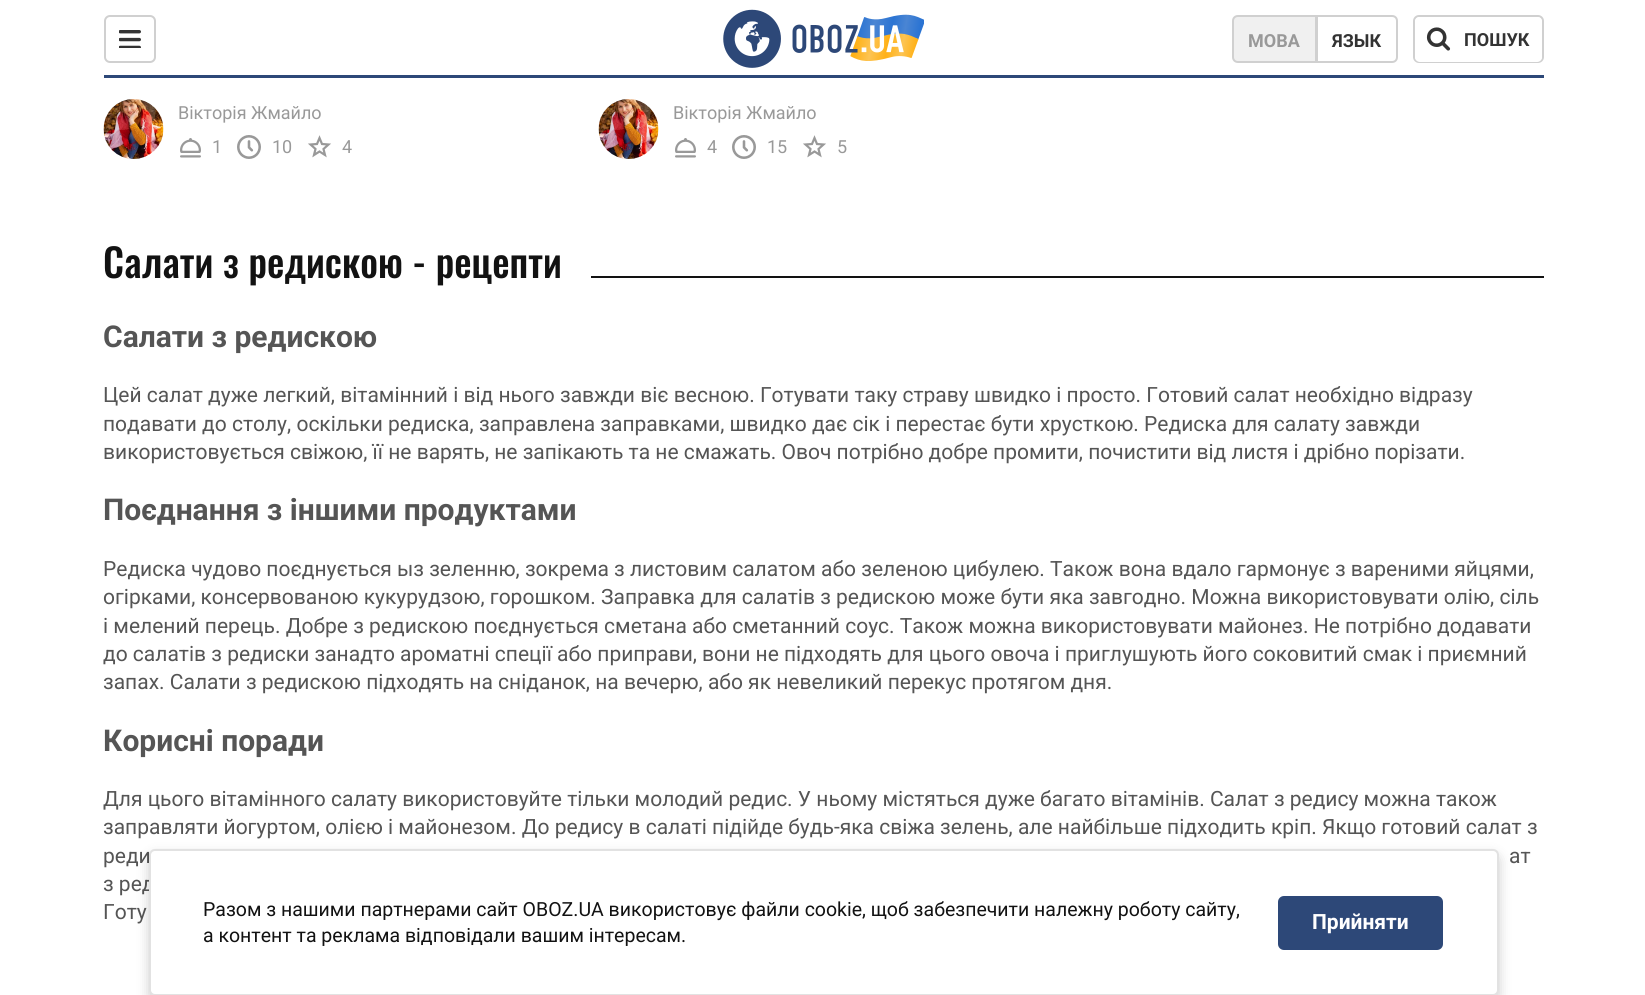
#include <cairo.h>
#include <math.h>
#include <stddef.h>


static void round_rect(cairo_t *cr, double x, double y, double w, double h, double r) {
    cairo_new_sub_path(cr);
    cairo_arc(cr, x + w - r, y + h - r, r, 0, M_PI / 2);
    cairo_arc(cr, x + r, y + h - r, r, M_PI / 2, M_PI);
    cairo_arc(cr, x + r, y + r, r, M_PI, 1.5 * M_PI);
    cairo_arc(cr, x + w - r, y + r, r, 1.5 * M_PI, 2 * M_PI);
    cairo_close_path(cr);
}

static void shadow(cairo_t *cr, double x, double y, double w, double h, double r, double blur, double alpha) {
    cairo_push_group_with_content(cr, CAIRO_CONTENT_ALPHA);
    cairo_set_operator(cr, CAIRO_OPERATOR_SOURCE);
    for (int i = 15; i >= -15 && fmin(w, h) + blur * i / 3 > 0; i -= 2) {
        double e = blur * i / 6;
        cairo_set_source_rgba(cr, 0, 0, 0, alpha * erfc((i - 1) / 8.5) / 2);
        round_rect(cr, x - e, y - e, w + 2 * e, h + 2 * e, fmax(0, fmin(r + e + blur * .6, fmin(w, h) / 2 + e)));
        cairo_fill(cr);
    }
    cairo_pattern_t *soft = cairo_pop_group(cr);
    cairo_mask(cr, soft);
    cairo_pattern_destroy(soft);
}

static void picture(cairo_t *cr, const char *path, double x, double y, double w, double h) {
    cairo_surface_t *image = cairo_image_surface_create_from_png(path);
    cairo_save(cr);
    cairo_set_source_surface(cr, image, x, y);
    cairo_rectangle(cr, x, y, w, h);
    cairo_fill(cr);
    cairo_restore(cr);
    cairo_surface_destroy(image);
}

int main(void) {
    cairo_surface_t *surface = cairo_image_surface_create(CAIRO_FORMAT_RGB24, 1645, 995);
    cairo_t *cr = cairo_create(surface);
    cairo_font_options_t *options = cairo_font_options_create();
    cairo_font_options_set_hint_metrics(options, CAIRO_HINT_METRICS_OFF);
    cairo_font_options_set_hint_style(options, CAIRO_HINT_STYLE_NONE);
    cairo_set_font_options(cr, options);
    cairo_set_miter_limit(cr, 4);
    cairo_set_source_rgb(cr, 1, 1, 1);
    cairo_paint(cr);
    cairo_set_source_rgb(cr, 0.176, 0.282, 0.471);
    cairo_rectangle(cr, 104, 75, 1440, 3);
    cairo_fill(cr);
    round_rect(cr, 105, 16, 50, 46, 5);
    cairo_set_source_rgb(cr, 0.816, 0.816, 0.816);
    cairo_stroke(cr);
    picture(cr, "img1.png", 119, 30, 22, 18);
    picture(cr, "img2.png", 723, 9, 201, 59);
    cairo_set_source_rgb(cr, 0.941, 0.941, 0.941);
    cairo_new_path(cr);
    cairo_move_to(cr, 1238, 16);
    cairo_line_to(cr, 1316, 16);
    cairo_line_to(cr, 1316, 62);
    cairo_line_to(cr, 1238, 62);
    cairo_curve_to(cr, 1235, 62, 1233, 60, 1233, 57);
    cairo_line_to(cr, 1233, 21);
    cairo_curve_to(cr, 1233, 18, 1235, 16, 1238, 16);
    cairo_close_path(cr);
    cairo_fill_preserve(cr);
    cairo_set_source_rgb(cr, 0.816, 0.816, 0.816);
    cairo_stroke(cr);
    cairo_select_font_face(cr, "Roboto", CAIRO_FONT_SLANT_NORMAL, CAIRO_FONT_WEIGHT_BOLD);
    cairo_set_font_size(cr, 18);
    cairo_set_source_rgb(cr, 0.6, 0.6, 0.6);
    cairo_move_to(cr, 1248, 47);
    cairo_show_text(cr, "МОВА");
    cairo_set_source_rgb(cr, 1, 1, 1);
    cairo_new_path(cr);
    cairo_move_to(cr, 1317, 16);
    cairo_line_to(cr, 1392, 16);
    cairo_curve_to(cr, 1395, 16, 1397, 18, 1397, 21);
    cairo_line_to(cr, 1397, 57);
    cairo_curve_to(cr, 1397, 60, 1395, 62, 1392, 62);
    cairo_line_to(cr, 1317, 62);
    cairo_close_path(cr);
    cairo_fill_preserve(cr);
    cairo_set_source_rgb(cr, 0.816, 0.816, 0.816);
    cairo_stroke(cr);
    cairo_set_source_rgb(cr, 0.2, 0.2, 0.2);
    cairo_move_to(cr, 1332, 47);
    cairo_show_text(cr, "ЯЗЫК");
    round_rect(cr, 1414, 16, 129, 46, 5);
    cairo_set_source_rgb(cr, 0.816, 0.816, 0.816);
    cairo_stroke(cr);
    cairo_set_source_rgb(cr, 1, 1, 1);
    round_rect(cr, 1415, 17, 127, 45, 5);
    cairo_fill(cr);
    picture(cr, "img3.png", 1426, 27, 25, 24);
    cairo_set_source_rgb(cr, 0.2, 0.2, 0.2);
    cairo_move_to(cr, 1464, 46);
    cairo_show_text(cr, "ПОШУК");
    picture(cr, "img4.png", 103, 99, 61, 60);
    cairo_select_font_face(cr, "Roboto", CAIRO_FONT_SLANT_NORMAL, CAIRO_FONT_WEIGHT_NORMAL);
    cairo_set_source_rgb(cr, 0.6, 0.6, 0.6);
    cairo_move_to(cr, 178, 119);
    cairo_show_text(cr, "Вікторія Жмайло");
    picture(cr, "img5.png", 180, 138, 21, 20);
    cairo_move_to(cr, 212, 153);
    cairo_show_text(cr, "1");
    picture(cr, "img6.png", 237, 135, 24, 24);
    cairo_move_to(cr, 272, 153);
    cairo_show_text(cr, "10");
    cairo_new_path(cr);
    cairo_move_to(cr, 319.5, 138);
    cairo_line_to(cr, 322, 144);
    cairo_line_to(cr, 328.5, 144.5);
    cairo_line_to(cr, 323.5, 149);
    cairo_line_to(cr, 325, 155);
    cairo_line_to(cr, 319.5, 151.5);
    cairo_line_to(cr, 314, 155);
    cairo_line_to(cr, 315.5, 149);
    cairo_line_to(cr, 310.5, 144.5);
    cairo_line_to(cr, 317, 144);
    cairo_close_path(cr);
    cairo_set_line_width(cr, 2.2);
    cairo_stroke(cr);
    cairo_move_to(cr, 342, 153);
    cairo_show_text(cr, "4");
    picture(cr, "img7.png", 598, 99, 61, 60);
    cairo_move_to(cr, 673, 119);
    cairo_show_text(cr, "Вікторія Жмайло");
    picture(cr, "img5.png", 675, 138, 21, 20);
    cairo_move_to(cr, 707, 153);
    cairo_show_text(cr, "4");
    picture(cr, "img6.png", 732, 135, 24, 24);
    cairo_move_to(cr, 767, 153);
    cairo_show_text(cr, "15");
    cairo_new_path(cr);
    cairo_move_to(cr, 814.5, 138);
    cairo_line_to(cr, 817, 144);
    cairo_line_to(cr, 823.5, 144.5);
    cairo_line_to(cr, 818.5, 149);
    cairo_line_to(cr, 820, 155);
    cairo_line_to(cr, 814.5, 151.5);
    cairo_line_to(cr, 809, 155);
    cairo_line_to(cr, 810.5, 149);
    cairo_line_to(cr, 805.5, 144.5);
    cairo_line_to(cr, 812, 144);
    cairo_close_path(cr);
    cairo_stroke(cr);
    cairo_move_to(cr, 837, 153);
    cairo_show_text(cr, "5");
    cairo_select_font_face(cr, "Oswald Medium", CAIRO_FONT_SLANT_NORMAL, CAIRO_FONT_WEIGHT_NORMAL);
    cairo_set_font_size(cr, 39);
    cairo_set_source_rgb(cr, 0.071, 0.071, 0.071);
    cairo_move_to(cr, 103, 278);
    cairo_show_text(cr, "Салати з редискою - рецепти");
    cairo_rectangle(cr, 591, 276, 953, 2);
    cairo_fill(cr);
    cairo_select_font_face(cr, "Roboto", CAIRO_FONT_SLANT_NORMAL, CAIRO_FONT_WEIGHT_BOLD);
    cairo_set_font_size(cr, 30);
    cairo_set_source_rgb(cr, 0.333, 0.333, 0.333);
    cairo_move_to(cr, 103, 347);
    cairo_show_text(cr, "Салати з редискою");
    cairo_select_font_face(cr, "Roboto", CAIRO_FONT_SLANT_NORMAL, CAIRO_FONT_WEIGHT_NORMAL);
    cairo_set_font_size(cr, 21);
    cairo_move_to(cr, 103, 402);
    cairo_show_text(cr, "Цей салат дуже легкий, вітамінний і від нього завжди віє весною. Готувати таку страву швидко і просто. Готовий салат необхідно відразу");
    cairo_move_to(cr, 103, 431);
    cairo_show_text(cr, "подавати до столу, оскільки редиска, заправлена заправками, швидко дає сік і перестає бути хрусткою. Редиска для салату завжди");
    cairo_move_to(cr, 103, 459);
    cairo_show_text(cr, "використовується свіжою, її не варять, не запікають та не смажать. Овоч потрібно добре промити, почистити від листя і дрібно порізати.");
    cairo_select_font_face(cr, "Roboto", CAIRO_FONT_SLANT_NORMAL, CAIRO_FONT_WEIGHT_BOLD);
    cairo_set_font_size(cr, 30);
    cairo_move_to(cr, 103, 520);
    cairo_show_text(cr, "Поєднання з іншими продуктами");
    cairo_select_font_face(cr, "Roboto", CAIRO_FONT_SLANT_NORMAL, CAIRO_FONT_WEIGHT_NORMAL);
    cairo_set_font_size(cr, 21);
    cairo_move_to(cr, 103, 576);
    cairo_show_text(cr, "Редиска чудово поєднується ыз зеленню, зокрема з листовим салатом або зеленою цибулею. Також вона вдало гармонує з вареними яйцями,");
    cairo_move_to(cr, 103, 604);
    cairo_show_text(cr, "огірками, консервованою кукурудзою, горошком. Заправка для салатів з редискою може бути яка завгодно. Можна використовувати олію, сіль");
    cairo_move_to(cr, 103, 633);
    cairo_show_text(cr, "і мелений перець. Добре з редискою поєднується сметана або сметанний соус. Також можна використовувати майонез. Не потрібно додавати");
    cairo_move_to(cr, 103, 661);
    cairo_show_text(cr, "до салатів з редиски занадто ароматні спеції або приправи, вони не підходять для цього овоча і приглушують його соковитий смак і приємний");
    cairo_move_to(cr, 103, 689);
    cairo_show_text(cr, "запах. Салати з редискою підходять на сніданок, на вечерю, або як невеликий перекус протягом дня.");
    cairo_select_font_face(cr, "Roboto", CAIRO_FONT_SLANT_NORMAL, CAIRO_FONT_WEIGHT_BOLD);
    cairo_set_font_size(cr, 30);
    cairo_move_to(cr, 103, 751);
    cairo_show_text(cr, "Корисні поради");
    cairo_select_font_face(cr, "Roboto", CAIRO_FONT_SLANT_NORMAL, CAIRO_FONT_WEIGHT_NORMAL);
    cairo_set_font_size(cr, 21);
    cairo_move_to(cr, 103, 806);
    cairo_show_text(cr, "Для цього вітамінного салату використовуйте тільки молодий редис. У ньому містяться дуже багато вітамінів. Салат з редису можна також");
    cairo_move_to(cr, 103, 834);
    cairo_show_text(cr, "заправляти йогуртом, олією і майонезом. До редису в салаті підійде будь-яка свіжа зелень, але найбільше підходить кріп. Якщо готовий салат з");
    cairo_move_to(cr, 103, 863);
    cairo_show_text(cr, "реди");
    cairo_move_to(cr, 1509, 863);
    cairo_show_text(cr, "ат");
    cairo_move_to(cr, 103, 891);
    cairo_show_text(cr, "з ред");
    cairo_move_to(cr, 103, 919);
    cairo_show_text(cr, "Готу");
    cairo_set_source_rgb(cr, 0, 0, 0);
    shadow(cr, 149, 855, 1350, 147, 6, 6, 0.2);
    cairo_set_source_rgb(cr, 1, 1, 1);
    round_rect(cr, 150, 850, 1348, 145, 5);
    cairo_fill_preserve(cr);
    cairo_set_source_rgb(cr, 0.886, 0.886, 0.886);
    cairo_set_line_width(cr, 2);
    cairo_stroke(cr);
    cairo_set_font_size(cr, 19.5);
    cairo_set_source_rgb(cr, 0.071, 0.071, 0.071);
    cairo_move_to(cr, 203, 916);
    cairo_show_text(cr, "Разом з нашими партнерами сайт OBOZ.UA використовує файли cookie, щоб забезпечити належну роботу сайту,");
    cairo_move_to(cr, 203, 942);
    cairo_show_text(cr, "а контент та реклама відповідали вашим інтересам.");
    cairo_set_source_rgb(cr, 0.176, 0.282, 0.471);
    round_rect(cr, 1278, 896, 165, 54, 6);
    cairo_fill(cr);
    cairo_select_font_face(cr, "Roboto", CAIRO_FONT_SLANT_NORMAL, CAIRO_FONT_WEIGHT_BOLD);
    cairo_set_font_size(cr, 21);
    cairo_set_source_rgb(cr, 1, 1, 1);
    cairo_move_to(cr, 1312, 929);
    cairo_show_text(cr, "Прийняти");
    cairo_surface_write_to_png(surface, "page.png");
    cairo_font_options_destroy(options);
    cairo_destroy(cr);
    cairo_surface_destroy(surface);
    return 0;
}
